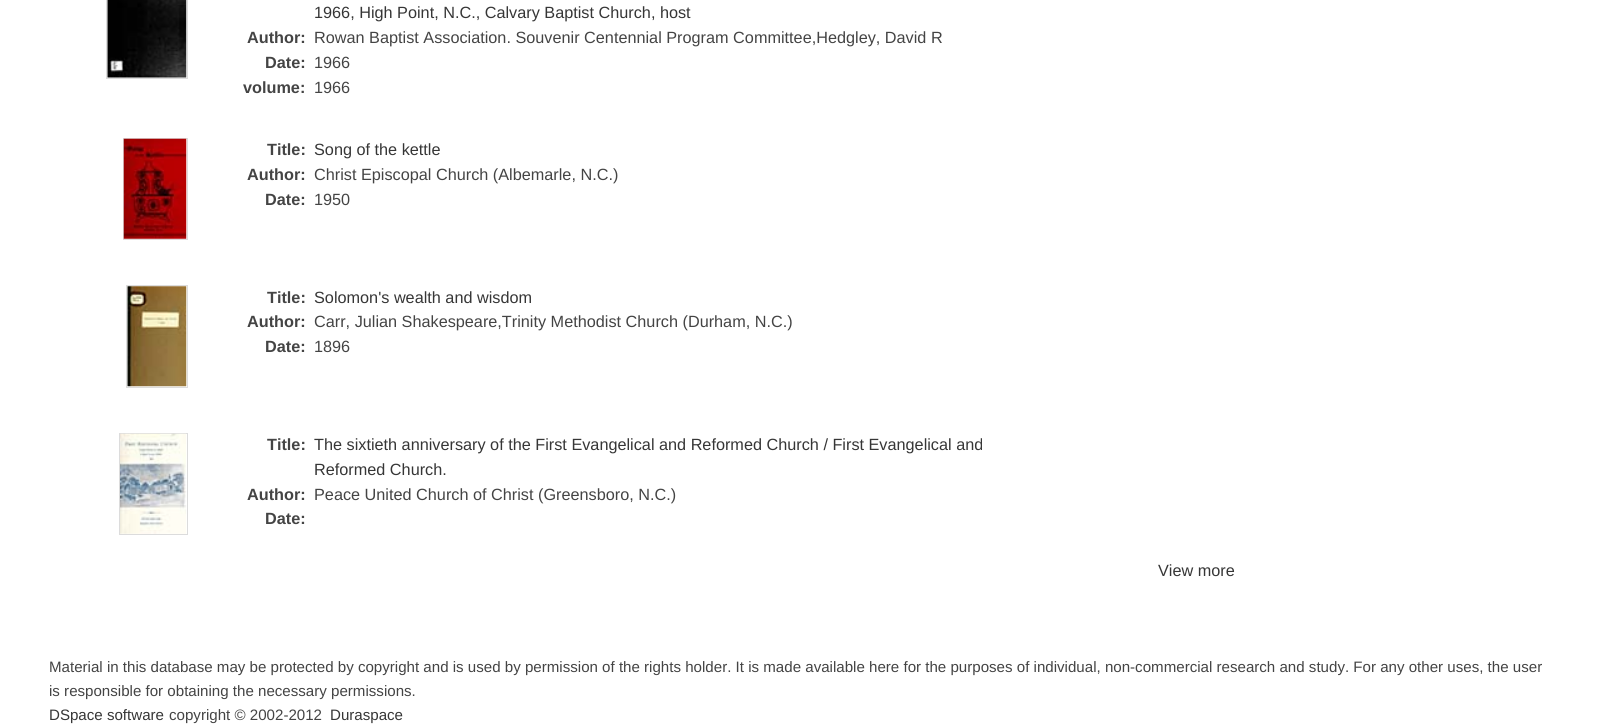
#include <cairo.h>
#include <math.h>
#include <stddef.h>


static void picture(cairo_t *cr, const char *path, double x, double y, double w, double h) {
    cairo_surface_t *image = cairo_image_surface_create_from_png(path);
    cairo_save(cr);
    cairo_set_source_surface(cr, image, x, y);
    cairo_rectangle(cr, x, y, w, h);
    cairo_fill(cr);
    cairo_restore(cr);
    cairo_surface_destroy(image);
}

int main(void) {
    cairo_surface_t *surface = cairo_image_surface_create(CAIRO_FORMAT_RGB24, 1598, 728);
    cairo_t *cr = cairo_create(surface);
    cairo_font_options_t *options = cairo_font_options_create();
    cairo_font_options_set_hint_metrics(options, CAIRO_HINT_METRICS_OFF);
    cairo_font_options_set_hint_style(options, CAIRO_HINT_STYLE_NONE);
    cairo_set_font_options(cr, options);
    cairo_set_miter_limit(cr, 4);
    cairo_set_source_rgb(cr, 1, 1, 1);
    cairo_paint(cr);
    cairo_rectangle(cr, 106.5, -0.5, 81, 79);
    cairo_set_source_rgb(cr, 0.863, 0.863, 0.863);
    cairo_set_line_width(cr, 1);
    cairo_stroke(cr);
    picture(cr, "img1.png", 107, 0, 80, 78);
    cairo_select_font_face(cr, "Liberation Sans", CAIRO_FONT_SLANT_NORMAL, CAIRO_FONT_WEIGHT_NORMAL);
    cairo_set_font_size(cr, 16.25);
    cairo_set_source_rgb(cr, 0.212, 0.212, 0.212);
    cairo_move_to(cr, 314, 18);
    cairo_show_text(cr, "1966, High Point, N.C., Calvary Baptist Church, host");
    cairo_select_font_face(cr, "Liberation Sans", CAIRO_FONT_SLANT_NORMAL, CAIRO_FONT_WEIGHT_BOLD);
    cairo_set_source_rgb(cr, 0.267, 0.267, 0.267);
    cairo_move_to(cr, 247, 43);
    cairo_show_text(cr, "Author:");
    cairo_select_font_face(cr, "Liberation Sans", CAIRO_FONT_SLANT_NORMAL, CAIRO_FONT_WEIGHT_NORMAL);
    cairo_move_to(cr, 314, 43);
    cairo_show_text(cr, "Rowan Baptist Association. Souvenir Centennial Program Committee,Hedgley, David R");
    cairo_select_font_face(cr, "Liberation Sans", CAIRO_FONT_SLANT_NORMAL, CAIRO_FONT_WEIGHT_BOLD);
    cairo_move_to(cr, 265, 68);
    cairo_show_text(cr, "Date:");
    cairo_select_font_face(cr, "Liberation Sans", CAIRO_FONT_SLANT_NORMAL, CAIRO_FONT_WEIGHT_NORMAL);
    cairo_move_to(cr, 314, 68);
    cairo_show_text(cr, "1966");
    cairo_select_font_face(cr, "Liberation Sans", CAIRO_FONT_SLANT_NORMAL, CAIRO_FONT_WEIGHT_BOLD);
    cairo_move_to(cr, 243, 93);
    cairo_show_text(cr, "volume:");
    cairo_select_font_face(cr, "Liberation Sans", CAIRO_FONT_SLANT_NORMAL, CAIRO_FONT_WEIGHT_NORMAL);
    cairo_move_to(cr, 314, 93);
    cairo_show_text(cr, "1966");
    cairo_rectangle(cr, 123.5, 138.5, 64, 101);
    cairo_set_source_rgb(cr, 0.863, 0.863, 0.863);
    cairo_stroke(cr);
    picture(cr, "img2.png", 123, 138, 64, 101);
    cairo_select_font_face(cr, "Liberation Sans", CAIRO_FONT_SLANT_NORMAL, CAIRO_FONT_WEIGHT_BOLD);
    cairo_set_source_rgb(cr, 0.267, 0.267, 0.267);
    cairo_move_to(cr, 267, 155);
    cairo_show_text(cr, "Title:");
    cairo_select_font_face(cr, "Liberation Sans", CAIRO_FONT_SLANT_NORMAL, CAIRO_FONT_WEIGHT_NORMAL);
    cairo_set_source_rgb(cr, 0.212, 0.212, 0.212);
    cairo_move_to(cr, 314, 155);
    cairo_show_text(cr, "Song of the kettle");
    cairo_select_font_face(cr, "Liberation Sans", CAIRO_FONT_SLANT_NORMAL, CAIRO_FONT_WEIGHT_BOLD);
    cairo_set_source_rgb(cr, 0.267, 0.267, 0.267);
    cairo_move_to(cr, 247, 180);
    cairo_show_text(cr, "Author:");
    cairo_select_font_face(cr, "Liberation Sans", CAIRO_FONT_SLANT_NORMAL, CAIRO_FONT_WEIGHT_NORMAL);
    cairo_move_to(cr, 314, 180);
    cairo_show_text(cr, "Christ Episcopal Church (Albemarle, N.C.)");
    cairo_select_font_face(cr, "Liberation Sans", CAIRO_FONT_SLANT_NORMAL, CAIRO_FONT_WEIGHT_BOLD);
    cairo_move_to(cr, 265, 205);
    cairo_show_text(cr, "Date:");
    cairo_select_font_face(cr, "Liberation Sans", CAIRO_FONT_SLANT_NORMAL, CAIRO_FONT_WEIGHT_NORMAL);
    cairo_move_to(cr, 314, 205);
    cairo_show_text(cr, "1950");
    cairo_rectangle(cr, 126.5, 285.5, 61, 102);
    cairo_set_source_rgb(cr, 0.863, 0.863, 0.863);
    cairo_stroke(cr);
    picture(cr, "img3.png", 127, 286, 60, 101);
    cairo_select_font_face(cr, "Liberation Sans", CAIRO_FONT_SLANT_NORMAL, CAIRO_FONT_WEIGHT_BOLD);
    cairo_set_source_rgb(cr, 0.267, 0.267, 0.267);
    cairo_move_to(cr, 267, 303);
    cairo_show_text(cr, "Title:");
    cairo_select_font_face(cr, "Liberation Sans", CAIRO_FONT_SLANT_NORMAL, CAIRO_FONT_WEIGHT_NORMAL);
    cairo_set_source_rgb(cr, 0.212, 0.212, 0.212);
    cairo_move_to(cr, 314, 303);
    cairo_show_text(cr, "Solomon's wealth and wisdom");
    cairo_select_font_face(cr, "Liberation Sans", CAIRO_FONT_SLANT_NORMAL, CAIRO_FONT_WEIGHT_BOLD);
    cairo_set_source_rgb(cr, 0.267, 0.267, 0.267);
    cairo_move_to(cr, 247, 327);
    cairo_show_text(cr, "Author:");
    cairo_select_font_face(cr, "Liberation Sans", CAIRO_FONT_SLANT_NORMAL, CAIRO_FONT_WEIGHT_NORMAL);
    cairo_move_to(cr, 314, 327);
    cairo_show_text(cr, "Carr, Julian Shakespeare,Trinity Methodist Church (Durham, N.C.)");
    cairo_select_font_face(cr, "Liberation Sans", CAIRO_FONT_SLANT_NORMAL, CAIRO_FONT_WEIGHT_BOLD);
    cairo_move_to(cr, 265, 352);
    cairo_show_text(cr, "Date:");
    cairo_select_font_face(cr, "Liberation Sans", CAIRO_FONT_SLANT_NORMAL, CAIRO_FONT_WEIGHT_NORMAL);
    cairo_move_to(cr, 314, 352);
    cairo_show_text(cr, "1896");
    cairo_rectangle(cr, 119.5, 433.5, 68, 101);
    cairo_set_source_rgb(cr, 0.863, 0.863, 0.863);
    cairo_stroke(cr);
    picture(cr, "img4.png", 120, 433, 67, 101);
    cairo_select_font_face(cr, "Liberation Sans", CAIRO_FONT_SLANT_NORMAL, CAIRO_FONT_WEIGHT_BOLD);
    cairo_set_source_rgb(cr, 0.267, 0.267, 0.267);
    cairo_move_to(cr, 267, 450);
    cairo_show_text(cr, "Title:");
    cairo_select_font_face(cr, "Liberation Sans", CAIRO_FONT_SLANT_NORMAL, CAIRO_FONT_WEIGHT_NORMAL);
    cairo_set_source_rgb(cr, 0.212, 0.212, 0.212);
    cairo_move_to(cr, 314, 450);
    cairo_show_text(cr, "The sixtieth anniversary of the First Evangelical and Reformed Church / First Evangelical and");
    cairo_move_to(cr, 314, 475);
    cairo_show_text(cr, "Reformed Church.");
    cairo_select_font_face(cr, "Liberation Sans", CAIRO_FONT_SLANT_NORMAL, CAIRO_FONT_WEIGHT_BOLD);
    cairo_set_source_rgb(cr, 0.267, 0.267, 0.267);
    cairo_move_to(cr, 247, 500);
    cairo_show_text(cr, "Author:");
    cairo_select_font_face(cr, "Liberation Sans", CAIRO_FONT_SLANT_NORMAL, CAIRO_FONT_WEIGHT_NORMAL);
    cairo_move_to(cr, 314, 500);
    cairo_show_text(cr, "Peace United Church of Christ (Greensboro, N.C.)");
    cairo_select_font_face(cr, "Liberation Sans", CAIRO_FONT_SLANT_NORMAL, CAIRO_FONT_WEIGHT_BOLD);
    cairo_move_to(cr, 265, 524);
    cairo_show_text(cr, "Date:");
    cairo_select_font_face(cr, "Liberation Sans", CAIRO_FONT_SLANT_NORMAL, CAIRO_FONT_WEIGHT_NORMAL);
    cairo_set_source_rgb(cr, 0.212, 0.212, 0.212);
    cairo_move_to(cr, 1158, 576);
    cairo_show_text(cr, "View more");
    cairo_set_font_size(cr, 15.1);
    cairo_set_source_rgb(cr, 0.267, 0.267, 0.267);
    cairo_move_to(cr, 49, 672);
    cairo_show_text(cr, "Material in this database may be protected by copyright and is used by permission of the rights holder. It is made available here for the purposes of individual, non-commercial research and study. For any other uses, the user");
    cairo_move_to(cr, 49, 696);
    cairo_show_text(cr, "is responsible for obtaining the necessary permissions.");
    cairo_set_source_rgb(cr, 0.212, 0.212, 0.212);
    cairo_move_to(cr, 49, 720);
    cairo_show_text(cr, "DSpace software");
    cairo_set_source_rgb(cr, 0.267, 0.267, 0.267);
    cairo_move_to(cr, 169, 720);
    cairo_show_text(cr, "copyright © 2002-2012");
    cairo_set_source_rgb(cr, 0.212, 0.212, 0.212);
    cairo_move_to(cr, 330, 720);
    cairo_show_text(cr, "Duraspace");
    cairo_surface_write_to_png(surface, "page.png");
    cairo_font_options_destroy(options);
    cairo_destroy(cr);
    cairo_surface_destroy(surface);
    return 0;
}
